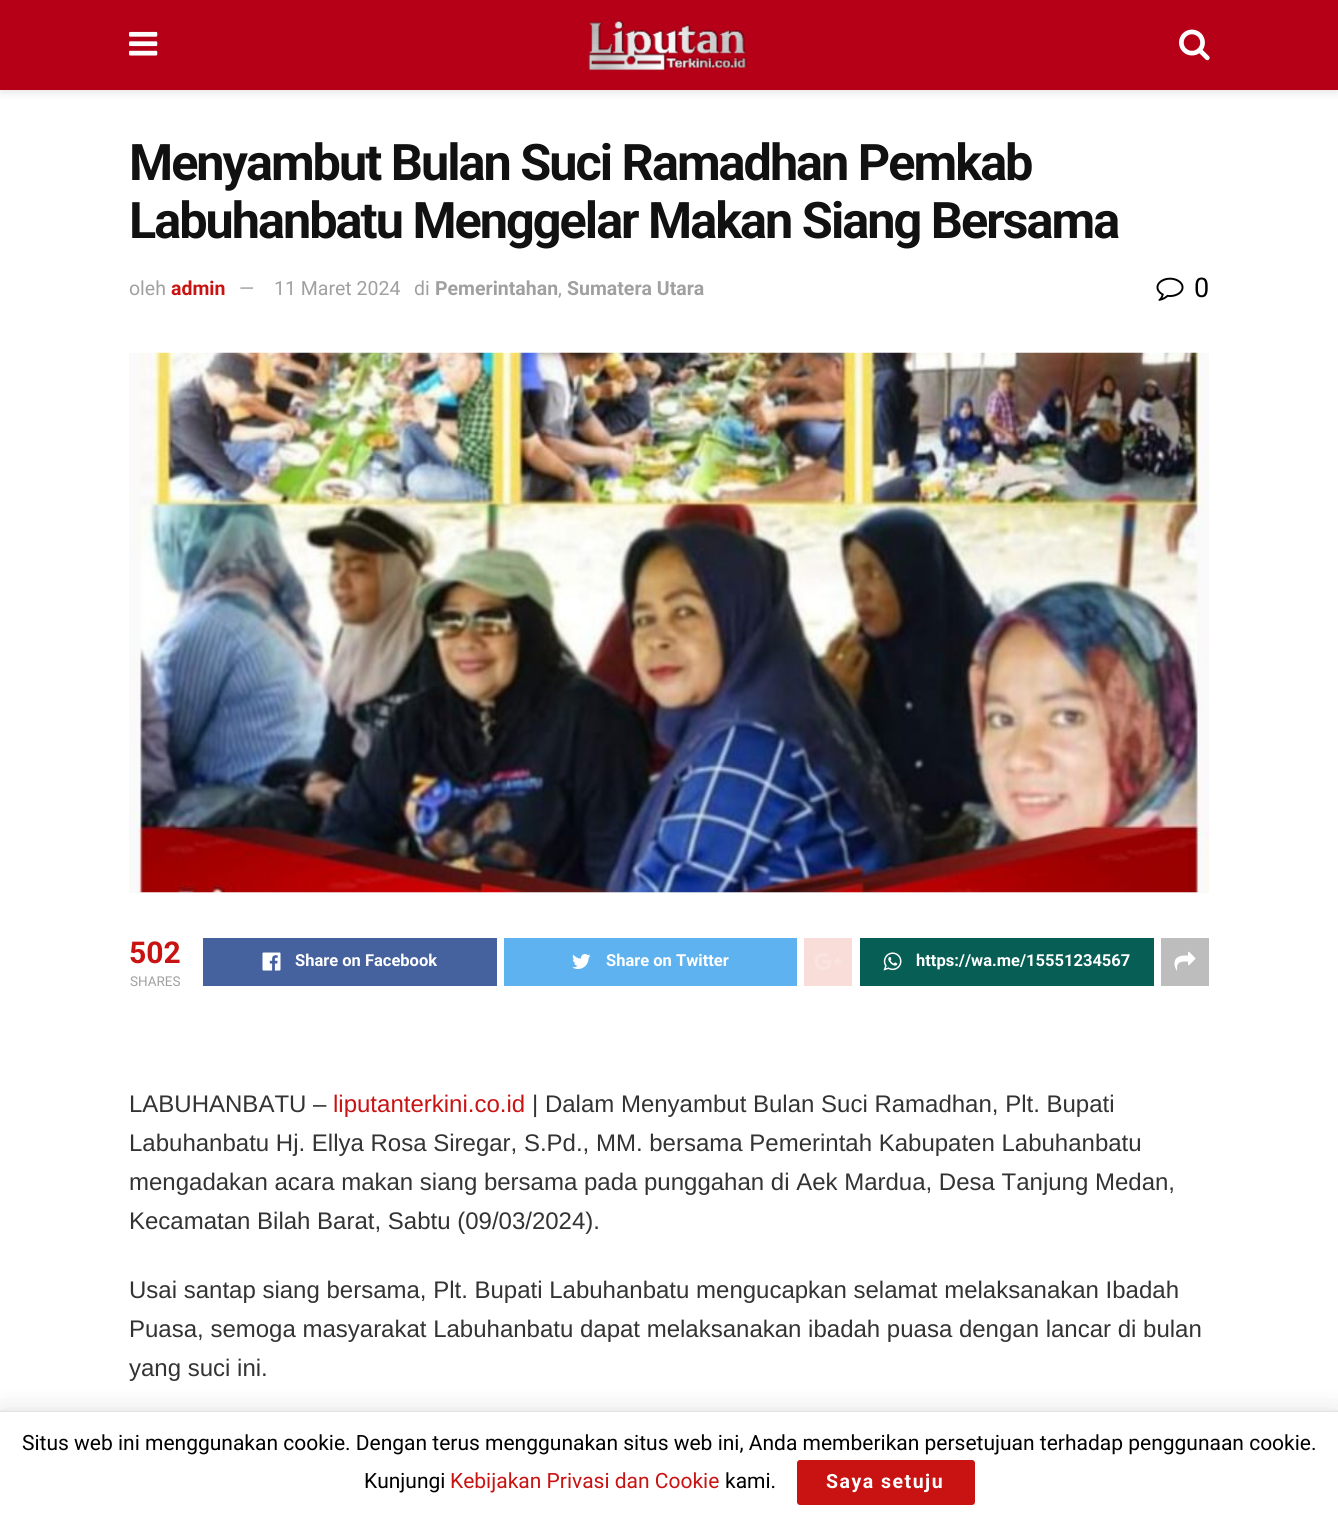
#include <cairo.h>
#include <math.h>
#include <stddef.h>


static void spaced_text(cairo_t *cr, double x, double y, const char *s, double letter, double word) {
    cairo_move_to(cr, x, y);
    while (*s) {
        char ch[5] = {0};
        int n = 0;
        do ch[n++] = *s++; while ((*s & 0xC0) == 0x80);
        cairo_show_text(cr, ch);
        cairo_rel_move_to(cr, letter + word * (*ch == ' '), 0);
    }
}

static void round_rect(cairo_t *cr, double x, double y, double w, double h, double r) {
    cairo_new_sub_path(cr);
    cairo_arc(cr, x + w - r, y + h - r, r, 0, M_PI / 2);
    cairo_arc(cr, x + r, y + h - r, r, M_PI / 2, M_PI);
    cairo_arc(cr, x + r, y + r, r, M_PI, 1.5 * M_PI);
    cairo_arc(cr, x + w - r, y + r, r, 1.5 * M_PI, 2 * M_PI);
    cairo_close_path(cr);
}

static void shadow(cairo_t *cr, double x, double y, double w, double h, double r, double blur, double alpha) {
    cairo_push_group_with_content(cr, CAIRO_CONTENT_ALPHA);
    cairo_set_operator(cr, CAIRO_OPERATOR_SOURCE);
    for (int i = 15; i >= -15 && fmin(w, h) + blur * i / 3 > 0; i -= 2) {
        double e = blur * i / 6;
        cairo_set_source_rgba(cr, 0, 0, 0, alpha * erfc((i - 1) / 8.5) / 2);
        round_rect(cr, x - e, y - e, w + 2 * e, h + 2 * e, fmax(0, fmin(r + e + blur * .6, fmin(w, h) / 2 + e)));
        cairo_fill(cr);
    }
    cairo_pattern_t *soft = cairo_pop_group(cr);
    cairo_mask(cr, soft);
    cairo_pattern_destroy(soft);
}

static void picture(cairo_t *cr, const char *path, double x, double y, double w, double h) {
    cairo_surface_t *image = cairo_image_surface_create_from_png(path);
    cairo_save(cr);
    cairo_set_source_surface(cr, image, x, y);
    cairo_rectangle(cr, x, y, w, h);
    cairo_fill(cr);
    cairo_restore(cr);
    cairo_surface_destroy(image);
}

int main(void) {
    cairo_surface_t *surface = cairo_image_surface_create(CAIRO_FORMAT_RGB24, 1338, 1519);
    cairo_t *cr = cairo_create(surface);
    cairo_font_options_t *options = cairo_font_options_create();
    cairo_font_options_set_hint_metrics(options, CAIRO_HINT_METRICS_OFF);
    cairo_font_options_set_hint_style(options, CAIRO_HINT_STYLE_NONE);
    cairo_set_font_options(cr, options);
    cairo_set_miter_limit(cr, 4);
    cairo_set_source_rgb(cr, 1, 1, 1);
    cairo_paint(cr);
    cairo_set_source_rgb(cr, 0, 0, 0);
    shadow(cr, 0, 3, 1338, 90, 0, 4.5, 0.1);
    cairo_set_source_rgb(cr, 0.71, 0, 0.094);
    cairo_rectangle(cr, 0, 0, 1338, 90);
    cairo_fill(cr);
    picture(cr, "img1.png", 129, 31, 29, 25);
    picture(cr, "img2.png", 588, 20, 159, 51);
    picture(cr, "img3.png", 1179, 29, 31, 32);
    cairo_select_font_face(cr, "Roboto", CAIRO_FONT_SLANT_NORMAL, CAIRO_FONT_WEIGHT_BOLD);
    cairo_set_font_size(cr, 50.4);
    cairo_set_source_rgb(cr, 0.067, 0.067, 0.067);
    spaced_text(cr, 129, 180, "Menyambut Bulan Suci Ramadhan Pemkab", -2, 0);
    spaced_text(cr, 129, 238, "Labuhanbatu Menggelar Makan Siang Bersama", -2, 0);
    cairo_select_font_face(cr, "Roboto", CAIRO_FONT_SLANT_NORMAL, CAIRO_FONT_WEIGHT_NORMAL);
    cairo_set_font_size(cr, 19.5);
    cairo_set_source_rgb(cr, 0.627, 0.627, 0.627);
    cairo_move_to(cr, 129, 295);
    cairo_show_text(cr, "oleh");
    cairo_select_font_face(cr, "Roboto", CAIRO_FONT_SLANT_NORMAL, CAIRO_FONT_WEIGHT_BOLD);
    cairo_set_source_rgb(cr, 0.788, 0.071, 0.071);
    cairo_move_to(cr, 171, 295);
    cairo_show_text(cr, "admin");
    cairo_select_font_face(cr, "Roboto", CAIRO_FONT_SLANT_NORMAL, CAIRO_FONT_WEIGHT_NORMAL);
    cairo_set_source_rgb(cr, 0.627, 0.627, 0.627);
    cairo_move_to(cr, 239, 295);
    cairo_show_text(cr, "—");
    cairo_move_to(cr, 274, 295);
    cairo_show_text(cr, "11 Maret 2024");
    cairo_move_to(cr, 414, 295);
    cairo_show_text(cr, "di");
    cairo_select_font_face(cr, "Roboto", CAIRO_FONT_SLANT_NORMAL, CAIRO_FONT_WEIGHT_BOLD);
    cairo_move_to(cr, 435, 295);
    cairo_show_text(cr, "Pemerintahan");
    cairo_select_font_face(cr, "Roboto", CAIRO_FONT_SLANT_NORMAL, CAIRO_FONT_WEIGHT_NORMAL);
    cairo_move_to(cr, 558, 295);
    cairo_show_text(cr, ",");
    cairo_select_font_face(cr, "Roboto", CAIRO_FONT_SLANT_NORMAL, CAIRO_FONT_WEIGHT_BOLD);
    cairo_move_to(cr, 567, 295);
    cairo_show_text(cr, "Sumatera Utara");
    picture(cr, "img4.png", 1156, 277, 28, 24);
    cairo_select_font_face(cr, "Roboto", CAIRO_FONT_SLANT_NORMAL, CAIRO_FONT_WEIGHT_NORMAL);
    cairo_set_font_size(cr, 27);
    cairo_set_source_rgb(cr, 0, 0, 0);
    cairo_move_to(cr, 1194, 297);
    cairo_show_text(cr, "0");
    cairo_set_source_rgb(cr, 0.969, 0.969, 0.969);
    cairo_rectangle(cr, 129, 892, 1080, 1);
    cairo_fill(cr);
    picture(cr, "img5.png", 129, 352, 1080, 541);
    cairo_select_font_face(cr, "Roboto", CAIRO_FONT_SLANT_NORMAL, CAIRO_FONT_WEIGHT_BOLD);
    cairo_set_font_size(cr, 30);
    cairo_set_source_rgb(cr, 0.788, 0.071, 0.071);
    cairo_move_to(cr, 129, 963);
    cairo_show_text(cr, "502");
    cairo_select_font_face(cr, "Roboto", CAIRO_FONT_SLANT_NORMAL, CAIRO_FONT_WEIGHT_NORMAL);
    cairo_set_font_size(cr, 13.5);
    cairo_set_source_rgb(cr, 0.627, 0.627, 0.627);
    cairo_move_to(cr, 130, 986);
    cairo_show_text(cr, "SHARES");
    cairo_set_source_rgb(cr, 0.271, 0.384, 0.624);
    cairo_rectangle(cr, 203, 938, 294, 48);
    cairo_fill(cr);
    picture(cr, "img6.png", 262, 952, 19, 19);
    cairo_select_font_face(cr, "Roboto", CAIRO_FONT_SLANT_NORMAL, CAIRO_FONT_WEIGHT_BOLD);
    cairo_set_font_size(cr, 16.5);
    cairo_set_source_rgb(cr, 1, 1, 1);
    cairo_move_to(cr, 295, 966);
    cairo_show_text(cr, "Share on Facebook");
    cairo_set_source_rgb(cr, 0.369, 0.698, 0.937);
    cairo_rectangle(cr, 504, 938, 293, 48);
    cairo_fill(cr);
    picture(cr, "img7.png", 572, 954, 19, 15);
    cairo_set_source_rgb(cr, 1, 1, 1);
    cairo_move_to(cr, 606, 966);
    cairo_show_text(cr, "Share on Twitter");
    cairo_set_source_rgb(cr, 0.976, 0.867, 0.851);
    cairo_rectangle(cr, 804, 938, 48, 48);
    cairo_fill(cr);
    picture(cr, "img8.png", 815, 953, 26, 17);
    cairo_set_source_rgb(cr, 0.027, 0.369, 0.329);
    cairo_rectangle(cr, 860, 938, 294, 48);
    cairo_fill(cr);
    picture(cr, "img9.png", 883, 952, 19, 19);
    cairo_set_source_rgb(cr, 1, 1, 1);
    cairo_move_to(cr, 916, 966);
    cairo_show_text(cr, "https://wa.me/15551234567");
    cairo_set_source_rgb(cr, 0.741, 0.741, 0.741);
    cairo_rectangle(cr, 1161, 938, 48, 48);
    cairo_fill(cr);
    picture(cr, "img10.png", 1174, 951, 22, 20);
    cairo_select_font_face(cr, "Liberation Sans", CAIRO_FONT_SLANT_NORMAL, CAIRO_FONT_WEIGHT_NORMAL);
    cairo_set_font_size(cr, 24);
    cairo_set_source_rgb(cr, 0.2, 0.2, 0.2);
    cairo_move_to(cr, 129, 1112);
    cairo_show_text(cr, "LABUHANBATU –");
    cairo_set_source_rgb(cr, 0.788, 0.071, 0.071);
    cairo_move_to(cr, 333, 1112);
    cairo_show_text(cr, "liputanterkini.co.id");
    cairo_set_source_rgb(cr, 0.2, 0.2, 0.2);
    cairo_move_to(cr, 532, 1112);
    cairo_show_text(cr, "| Dalam Menyambut Bulan Suci Ramadhan, Plt. Bupati");
    cairo_move_to(cr, 129, 1151);
    cairo_show_text(cr, "Labuhanbatu Hj. Ellya Rosa Siregar, S.Pd., MM. bersama Pemerintah Kabupaten Labuhanbatu");
    cairo_move_to(cr, 129, 1190);
    cairo_show_text(cr, "mengadakan acara makan siang bersama pada punggahan di Aek Mardua, Desa Tanjung Medan,");
    cairo_move_to(cr, 129, 1229);
    cairo_show_text(cr, "Kecamatan Bilah Barat, Sabtu (09/03/2024).");
    cairo_move_to(cr, 129, 1298);
    cairo_show_text(cr, "Usai santap siang bersama, Plt. Bupati Labuhanbatu mengucapkan selamat melaksanakan Ibadah");
    cairo_move_to(cr, 129, 1337);
    cairo_show_text(cr, "Puasa, semoga masyarakat Labuhanbatu dapat melaksanakan ibadah puasa dengan lancar di bulan");
    cairo_move_to(cr, 129, 1376);
    cairo_show_text(cr, "yang suci ini.");
    cairo_set_source_rgb(cr, 0, 0, 0);
    shadow(cr, 0, 1415, 1338, 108, 0, 15, 0.15);
    shadow(cr, 0, 1412, 1338, 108, 0, 1, 0.2);
    cairo_set_source_rgb(cr, 1, 1, 1);
    cairo_rectangle(cr, 0, 1412, 1338, 107);
    cairo_fill(cr);
    cairo_select_font_face(cr, "Roboto", CAIRO_FONT_SLANT_NORMAL, CAIRO_FONT_WEIGHT_NORMAL);
    cairo_set_font_size(cr, 21);
    cairo_set_source_rgb(cr, 0, 0, 0);
    cairo_move_to(cr, 22, 1450);
    cairo_show_text(cr, "Situs web ini menggunakan cookie. Dengan terus menggunakan situs web ini, Anda memberikan persetujuan terhadap penggunaan cookie.");
    cairo_move_to(cr, 364, 1488);
    cairo_show_text(cr, "Kunjungi");
    cairo_set_source_rgb(cr, 0.788, 0.071, 0.071);
    cairo_move_to(cr, 450, 1488);
    cairo_show_text(cr, "Kebijakan Privasi dan Cookie");
    cairo_set_source_rgb(cr, 0, 0, 0);
    cairo_move_to(cr, 725, 1488);
    cairo_show_text(cr, "kami.");
    cairo_set_source_rgb(cr, 0.788, 0.071, 0.071);
    round_rect(cr, 797, 1460, 178, 45, 3);
    cairo_fill(cr);
    cairo_select_font_face(cr, "Roboto", CAIRO_FONT_SLANT_NORMAL, CAIRO_FONT_WEIGHT_BOLD);
    cairo_set_font_size(cr, 19.5);
    cairo_set_source_rgb(cr, 1, 1, 1);
    spaced_text(cr, 826, 1488, "Saya setuju", 1.5, 0);
    cairo_surface_write_to_png(surface, "page.png");
    cairo_font_options_destroy(options);
    cairo_destroy(cr);
    cairo_surface_destroy(surface);
    return 0;
}
